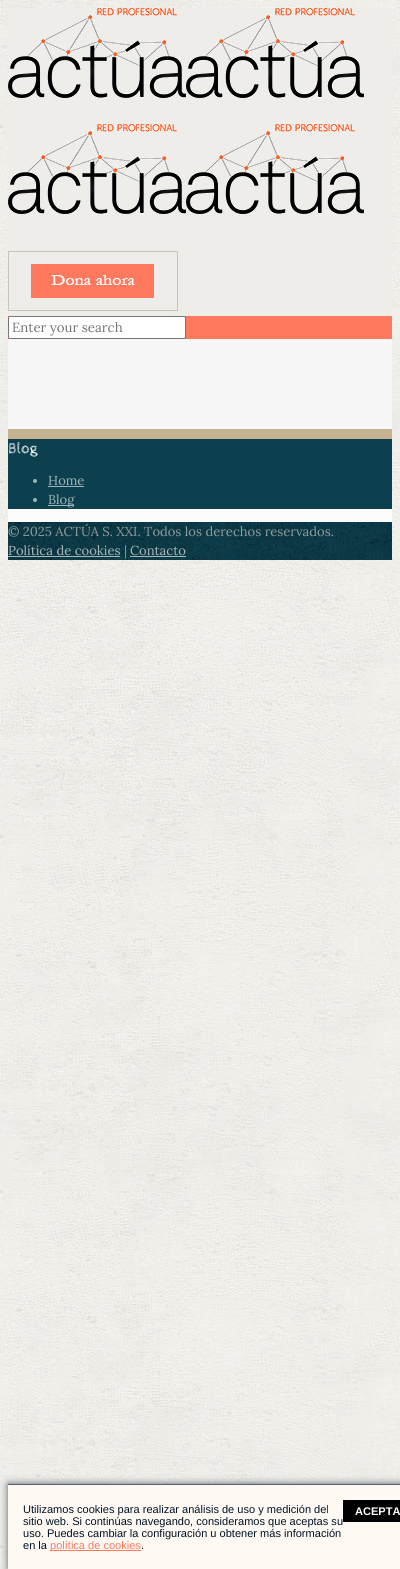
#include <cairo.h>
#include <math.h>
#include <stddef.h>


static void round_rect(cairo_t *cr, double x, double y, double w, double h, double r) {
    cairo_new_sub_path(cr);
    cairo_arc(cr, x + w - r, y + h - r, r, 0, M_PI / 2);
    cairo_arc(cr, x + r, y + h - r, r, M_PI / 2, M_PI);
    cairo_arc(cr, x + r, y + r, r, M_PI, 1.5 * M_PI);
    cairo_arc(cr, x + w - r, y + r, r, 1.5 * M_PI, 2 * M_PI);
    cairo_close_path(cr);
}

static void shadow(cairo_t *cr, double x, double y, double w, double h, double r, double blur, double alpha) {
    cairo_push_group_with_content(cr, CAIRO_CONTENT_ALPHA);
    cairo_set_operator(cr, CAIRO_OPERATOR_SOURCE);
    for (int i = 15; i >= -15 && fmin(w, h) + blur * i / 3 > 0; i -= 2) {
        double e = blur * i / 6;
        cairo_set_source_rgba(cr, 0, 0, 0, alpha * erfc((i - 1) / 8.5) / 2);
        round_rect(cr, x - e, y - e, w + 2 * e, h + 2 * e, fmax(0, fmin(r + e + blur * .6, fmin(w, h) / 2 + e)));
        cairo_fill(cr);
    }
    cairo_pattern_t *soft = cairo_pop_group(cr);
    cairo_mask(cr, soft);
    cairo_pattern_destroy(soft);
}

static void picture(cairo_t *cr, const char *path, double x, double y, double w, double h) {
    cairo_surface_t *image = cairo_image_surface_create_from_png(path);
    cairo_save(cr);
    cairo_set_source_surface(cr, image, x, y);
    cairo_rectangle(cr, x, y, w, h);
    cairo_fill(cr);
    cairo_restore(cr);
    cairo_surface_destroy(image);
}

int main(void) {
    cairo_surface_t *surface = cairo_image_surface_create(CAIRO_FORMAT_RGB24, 400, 1569);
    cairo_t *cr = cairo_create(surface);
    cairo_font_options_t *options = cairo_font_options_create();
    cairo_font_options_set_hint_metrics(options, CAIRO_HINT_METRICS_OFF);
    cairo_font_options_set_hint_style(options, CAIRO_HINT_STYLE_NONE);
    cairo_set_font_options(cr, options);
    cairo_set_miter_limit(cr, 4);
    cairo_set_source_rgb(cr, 1, 1, 1);
    cairo_paint(cr);
    picture(cr, "img1.png", 0, 0, 400, 1569);
    cairo_set_source_rgb(cr, 0.988, 0.988, 0.988);
    cairo_rectangle(cr, 8, 509, 384, 13);
    cairo_fill(cr);
    cairo_set_source_rgb(cr, 0.769, 0.702, 0.569);
    cairo_rectangle(cr, 8, 429, 384, 10);
    cairo_fill(cr);
    cairo_set_source_rgb(cr, 0.937, 0.929, 0.914);
    cairo_rectangle(cr, 8, 8, 384, 308);
    cairo_fill(cr);
    picture(cr, "img2.png", 8, 8, 178, 90);
    picture(cr, "img2.png", 186, 8, 178, 90);
    picture(cr, "img2.png", 8, 124, 178, 90);
    picture(cr, "img2.png", 186, 124, 178, 90);
    picture(cr, "img3.png", 8, 251, 170, 60);
    cairo_set_source_rgb(cr, 1, 0.475, 0.373);
    cairo_rectangle(cr, 8, 316, 384, 23);
    cairo_fill(cr);
    cairo_set_source_rgb(cr, 1, 1, 1);
    round_rect(cr, 8.5, 316.5, 177, 22, 1.5);
    cairo_fill_preserve(cr);
    cairo_set_source_rgb(cr, 0.463, 0.463, 0.463);
    cairo_set_line_width(cr, 1);
    cairo_stroke(cr);
    cairo_select_font_face(cr, "Lora", CAIRO_FONT_SLANT_NORMAL, CAIRO_FONT_WEIGHT_NORMAL);
    cairo_set_font_size(cr, 13.25);
    cairo_set_source_rgb(cr, 0.459, 0.459, 0.459);
    cairo_move_to(cr, 12, 332);
    cairo_show_text(cr, "Enter your search");
    cairo_set_source_rgb(cr, 0.961, 0.961, 0.961);
    cairo_rectangle(cr, 8, 339, 384, 90);
    cairo_fill(cr);
    cairo_set_source_rgb(cr, 0.051, 0.251, 0.31);
    cairo_rectangle(cr, 8, 439, 384, 70);
    cairo_fill(cr);
    cairo_select_font_face(cr, "Cabin Sketch", CAIRO_FONT_SLANT_NORMAL, CAIRO_FONT_WEIGHT_NORMAL);
    cairo_set_font_size(cr, 15);
    cairo_set_source_rgb(cr, 1, 1, 1);
    cairo_move_to(cr, 8, 453);
    cairo_show_text(cr, "Blog");
    cairo_set_source_rgb(cr, 0.62, 0.702, 0.725);
    cairo_new_path(cr);
    cairo_arc(cr, 35, 481, 2, 0, 2 * M_PI);
    cairo_fill(cr);
    cairo_select_font_face(cr, "Lora", CAIRO_FONT_SLANT_NORMAL, CAIRO_FONT_WEIGHT_NORMAL);
    cairo_set_font_size(cr, 13);
    cairo_move_to(cr, 48, 485);
    cairo_show_text(cr, "Home");
    cairo_rectangle(cr, 48, 486, 36, 1);
    cairo_fill(cr);
    cairo_arc(cr, 35, 500, 2, 0, 2 * M_PI);
    cairo_fill(cr);
    cairo_rectangle(cr, 48, 505, 26, 1);
    cairo_fill(cr);
    cairo_move_to(cr, 48, 504);
    cairo_show_text(cr, "Blog");
    picture(cr, "img4.png", 8, 522, 384, 38);
    cairo_set_source_rgb(cr, 0.557, 0.616, 0.616);
    cairo_move_to(cr, 8, 536);
    cairo_show_text(cr, "© 2025 ACTÚA S. XXI. Todos los derechos reservados.");
    cairo_set_source_rgb(cr, 0.671, 0.718, 0.718);
    cairo_move_to(cr, 8, 555);
    cairo_show_text(cr, "Política de cookies");
    cairo_rectangle(cr, 8, 556, 112, 1);
    cairo_fill(cr);
    cairo_set_source_rgb(cr, 0.557, 0.616, 0.616);
    cairo_move_to(cr, 124, 555);
    cairo_show_text(cr, "|");
    cairo_set_source_rgb(cr, 0.671, 0.718, 0.718);
    cairo_move_to(cr, 130, 555);
    cairo_show_text(cr, "Contacto");
    cairo_rectangle(cr, 130, 556, 56, 1);
    cairo_fill(cr);
    cairo_set_source_rgb(cr, 0.337, 0.388, 0.431);
    shadow(cr, 8, 1484, 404, 85, 0, 4, 1);
    cairo_set_source_rgb(cr, 1, 0.976, 0.957);
    cairo_rectangle(cr, 8, 1485, 392, 84);
    cairo_fill(cr);
    cairo_set_source_rgb(cr, 0.337, 0.388, 0.431);
    cairo_rectangle(cr, 8, 1484, 392, 1);
    cairo_fill(cr);
    cairo_select_font_face(cr, "Liberation Sans", CAIRO_FONT_SLANT_NORMAL, CAIRO_FONT_WEIGHT_NORMAL);
    cairo_set_font_size(cr, 11.05);
    cairo_set_source_rgb(cr, 0, 0.078, 0.141);
    cairo_move_to(cr, 23, 1513);
    cairo_show_text(cr, "Utilizamos cookies para realizar análisis de uso y medición del");
    cairo_move_to(cr, 23, 1525);
    cairo_show_text(cr, "sitio web. Si continúas navegando, consideramos que aceptas su");
    cairo_move_to(cr, 23, 1537);
    cairo_show_text(cr, "uso. Puedes cambiar la configuración u obtener más información");
    cairo_move_to(cr, 23, 1549);
    cairo_show_text(cr, "en la");
    cairo_set_source_rgb(cr, 1, 0.475, 0.373);
    cairo_rectangle(cr, 50, 1550, 91, 1);
    cairo_fill(cr);
    cairo_move_to(cr, 50, 1549);
    cairo_show_text(cr, "política de cookies");
    cairo_set_source_rgb(cr, 0, 0.078, 0.141);
    cairo_move_to(cr, 141, 1549);
    cairo_show_text(cr, ".");
    cairo_set_source_rgb(cr, 0, 0, 0);
    cairo_rectangle(cr, 343, 1500, 57, 22);
    cairo_fill(cr);
    cairo_select_font_face(cr, "Liberation Sans", CAIRO_FONT_SLANT_NORMAL, CAIRO_FONT_WEIGHT_BOLD);
    cairo_set_source_rgb(cr, 1, 1, 1);
    cairo_move_to(cr, 355, 1515);
    cairo_show_text(cr, "ACEPTA");
    cairo_surface_write_to_png(surface, "page.png");
    cairo_font_options_destroy(options);
    cairo_destroy(cr);
    cairo_surface_destroy(surface);
    return 0;
}
